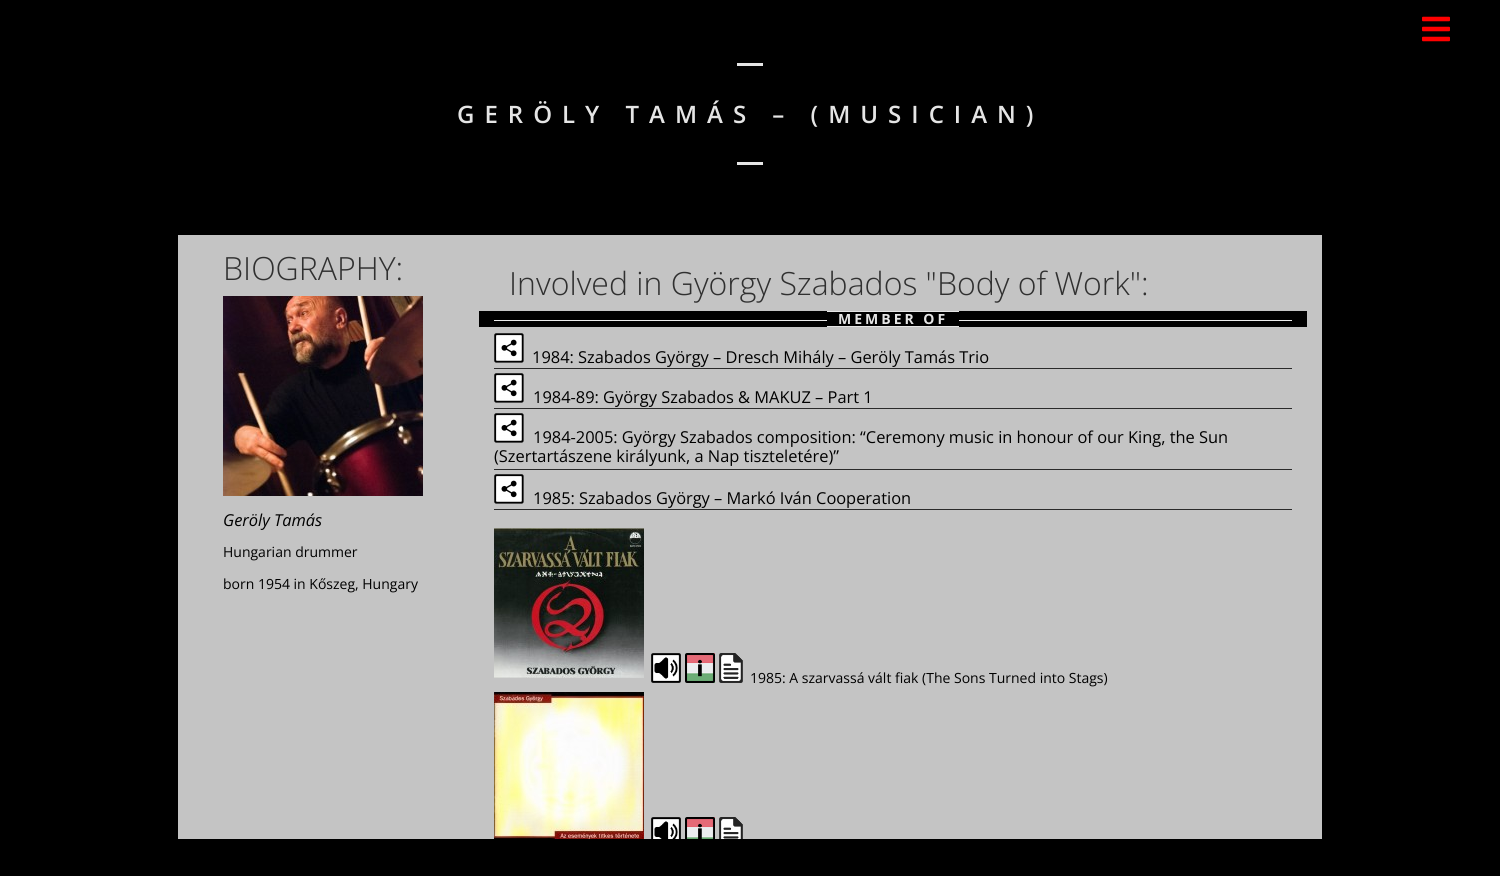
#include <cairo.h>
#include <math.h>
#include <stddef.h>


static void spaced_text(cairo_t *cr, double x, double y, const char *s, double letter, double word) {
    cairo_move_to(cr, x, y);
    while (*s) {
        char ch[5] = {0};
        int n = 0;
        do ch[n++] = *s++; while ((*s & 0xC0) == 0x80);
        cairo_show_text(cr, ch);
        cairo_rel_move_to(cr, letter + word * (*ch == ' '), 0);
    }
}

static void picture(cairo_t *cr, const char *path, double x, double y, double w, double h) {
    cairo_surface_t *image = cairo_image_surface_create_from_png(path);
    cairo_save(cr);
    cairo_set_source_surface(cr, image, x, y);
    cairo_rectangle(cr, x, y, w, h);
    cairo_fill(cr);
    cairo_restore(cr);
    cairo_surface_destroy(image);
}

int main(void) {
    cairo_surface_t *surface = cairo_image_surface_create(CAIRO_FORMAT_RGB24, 1500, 876);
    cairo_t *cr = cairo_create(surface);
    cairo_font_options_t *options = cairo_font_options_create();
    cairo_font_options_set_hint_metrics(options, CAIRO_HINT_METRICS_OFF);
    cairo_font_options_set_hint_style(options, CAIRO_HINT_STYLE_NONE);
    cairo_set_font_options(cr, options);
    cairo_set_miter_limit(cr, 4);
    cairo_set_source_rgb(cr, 0, 0, 0);
    cairo_paint(cr);
    picture(cr, "img1.png", 1422, 16, 28, 26);
    cairo_set_source_rgb(cr, 0.898, 0.898, 0.898);
    cairo_rectangle(cr, 737, 63, 26, 3);
    cairo_fill(cr);
    cairo_select_font_face(cr, "Open Sans SemiBold", CAIRO_FONT_SLANT_NORMAL, CAIRO_FONT_WEIGHT_NORMAL);
    cairo_set_font_size(cr, 24);
    spaced_text(cr, 457, 123, "GERÖLY TAMÁS – (MUSICIAN)", 10, 0);
    cairo_rectangle(cr, 737, 162, 26, 3);
    cairo_fill(cr);
    cairo_set_source_rgb(cr, 0.769, 0.769, 0.769);
    cairo_rectangle(cr, 178, 235, 1144, 604);
    cairo_fill(cr);
    cairo_select_font_face(cr, "Open Sans Light", CAIRO_FONT_SLANT_NORMAL, CAIRO_FONT_WEIGHT_NORMAL);
    cairo_set_font_size(cr, 32);
    cairo_set_source_rgb(cr, 0.188, 0.188, 0.188);
    cairo_move_to(cr, 223, 280);
    cairo_show_text(cr, "BIOGRAPHY:");
    picture(cr, "img2.png", 223, 296, 200, 200);
    cairo_select_font_face(cr, "Open Sans", CAIRO_FONT_SLANT_ITALIC, CAIRO_FONT_WEIGHT_NORMAL);
    cairo_set_font_size(cr, 16.4);
    cairo_set_source_rgb(cr, 0, 0, 0);
    cairo_move_to(cr, 223, 526);
    cairo_show_text(cr, "Geröly Tamás");
    cairo_select_font_face(cr, "Open Sans", CAIRO_FONT_SLANT_NORMAL, CAIRO_FONT_WEIGHT_NORMAL);
    cairo_set_font_size(cr, 14);
    cairo_move_to(cr, 223, 557);
    cairo_show_text(cr, "Hungarian drummer");
    cairo_move_to(cr, 223, 589);
    cairo_show_text(cr, "born 1954 in Kőszeg, Hungary");
    cairo_select_font_face(cr, "Open Sans Light", CAIRO_FONT_SLANT_NORMAL, CAIRO_FONT_WEIGHT_NORMAL);
    cairo_set_font_size(cr, 32);
    cairo_set_source_rgb(cr, 0.188, 0.188, 0.188);
    cairo_move_to(cr, 509, 295);
    cairo_show_text(cr, "Involved in György Szabados \"Body of Work\":");
    cairo_set_source_rgb(cr, 0, 0, 0);
    cairo_rectangle(cr, 479, 311, 828, 16);
    cairo_fill(cr);
    cairo_set_source_rgb(cr, 0.922, 0.922, 0.922);
    cairo_rectangle(cr, 494, 320, 333, 1);
    cairo_fill(cr);
    cairo_set_source_rgb(cr, 0.898, 0.898, 0.898);
    cairo_rectangle(cr, 827, 311, 132, 1);
    cairo_fill(cr);
    cairo_rectangle(cr, 827, 326, 132, 1);
    cairo_fill(cr);
    cairo_select_font_face(cr, "Open Sans", CAIRO_FONT_SLANT_NORMAL, CAIRO_FONT_WEIGHT_BOLD);
    cairo_set_font_size(cr, 14);
    spaced_text(cr, 838, 324, "MEMBER OF", 3, 0);
    cairo_set_source_rgb(cr, 0.922, 0.922, 0.922);
    cairo_rectangle(cr, 959, 320, 333, 1);
    cairo_fill(cr);
    picture(cr, "img3.png", 494, 333, 30, 30);
    cairo_select_font_face(cr, "Open Sans", CAIRO_FONT_SLANT_NORMAL, CAIRO_FONT_WEIGHT_NORMAL);
    cairo_set_font_size(cr, 16.4);
    cairo_set_source_rgb(cr, 0, 0, 0);
    cairo_move_to(cr, 532, 363);
    cairo_show_text(cr, "1984: Szabados György – Dresch Mihály – Geröly Tamás Trio");
    cairo_set_source_rgb(cr, 0.165, 0.165, 0.165);
    cairo_rectangle(cr, 494, 368, 798, 1);
    cairo_fill(cr);
    picture(cr, "img3.png", 494, 373, 30, 30);
    cairo_set_source_rgb(cr, 0, 0, 0);
    cairo_move_to(cr, 533, 403);
    cairo_show_text(cr, "1984-89: György Szabados & MAKUZ – Part 1");
    cairo_set_source_rgb(cr, 0.165, 0.165, 0.165);
    cairo_rectangle(cr, 494, 408, 798, 1);
    cairo_fill(cr);
    picture(cr, "img3.png", 494, 413, 30, 30);
    cairo_set_source_rgb(cr, 0, 0, 0);
    cairo_move_to(cr, 533, 443);
    cairo_show_text(cr, "1984-2005: György Szabados composition: “Ceremony music in honour of our King, the Sun");
    cairo_move_to(cr, 494, 462);
    cairo_show_text(cr, "(Szertartászene királyunk, a Nap tiszteletére)”");
    cairo_set_source_rgb(cr, 0.165, 0.165, 0.165);
    cairo_rectangle(cr, 494, 469, 798, 1);
    cairo_fill(cr);
    picture(cr, "img3.png", 494, 474, 30, 30);
    cairo_set_source_rgb(cr, 0, 0, 0);
    cairo_move_to(cr, 533, 504);
    cairo_show_text(cr, "1985: Szabados György – Markó Iván Cooperation");
    cairo_set_source_rgb(cr, 0.165, 0.165, 0.165);
    cairo_rectangle(cr, 494, 509, 798, 1);
    cairo_fill(cr);
    picture(cr, "img4.png", 494, 528, 150, 150);
    picture(cr, "img5.png", 651, 653, 30, 30);
    picture(cr, "img6.png", 685, 653, 30, 30);
    picture(cr, "img7.png", 719, 653, 24, 30);
    cairo_set_font_size(cr, 14);
    cairo_set_source_rgb(cr, 0, 0, 0);
    cairo_move_to(cr, 750, 683);
    cairo_show_text(cr, "1985: A szarvassá vált fiak (The Sons Turned into Stags)");
    picture(cr, "img8.png", 494, 692, 150, 147);
    picture(cr, "img9.png", 651, 817, 30, 22);
    picture(cr, "img10.png", 685, 817, 30, 22);
    picture(cr, "img11.png", 719, 817, 24, 22);
    cairo_surface_write_to_png(surface, "page.png");
    cairo_font_options_destroy(options);
    cairo_destroy(cr);
    cairo_surface_destroy(surface);
    return 0;
}
